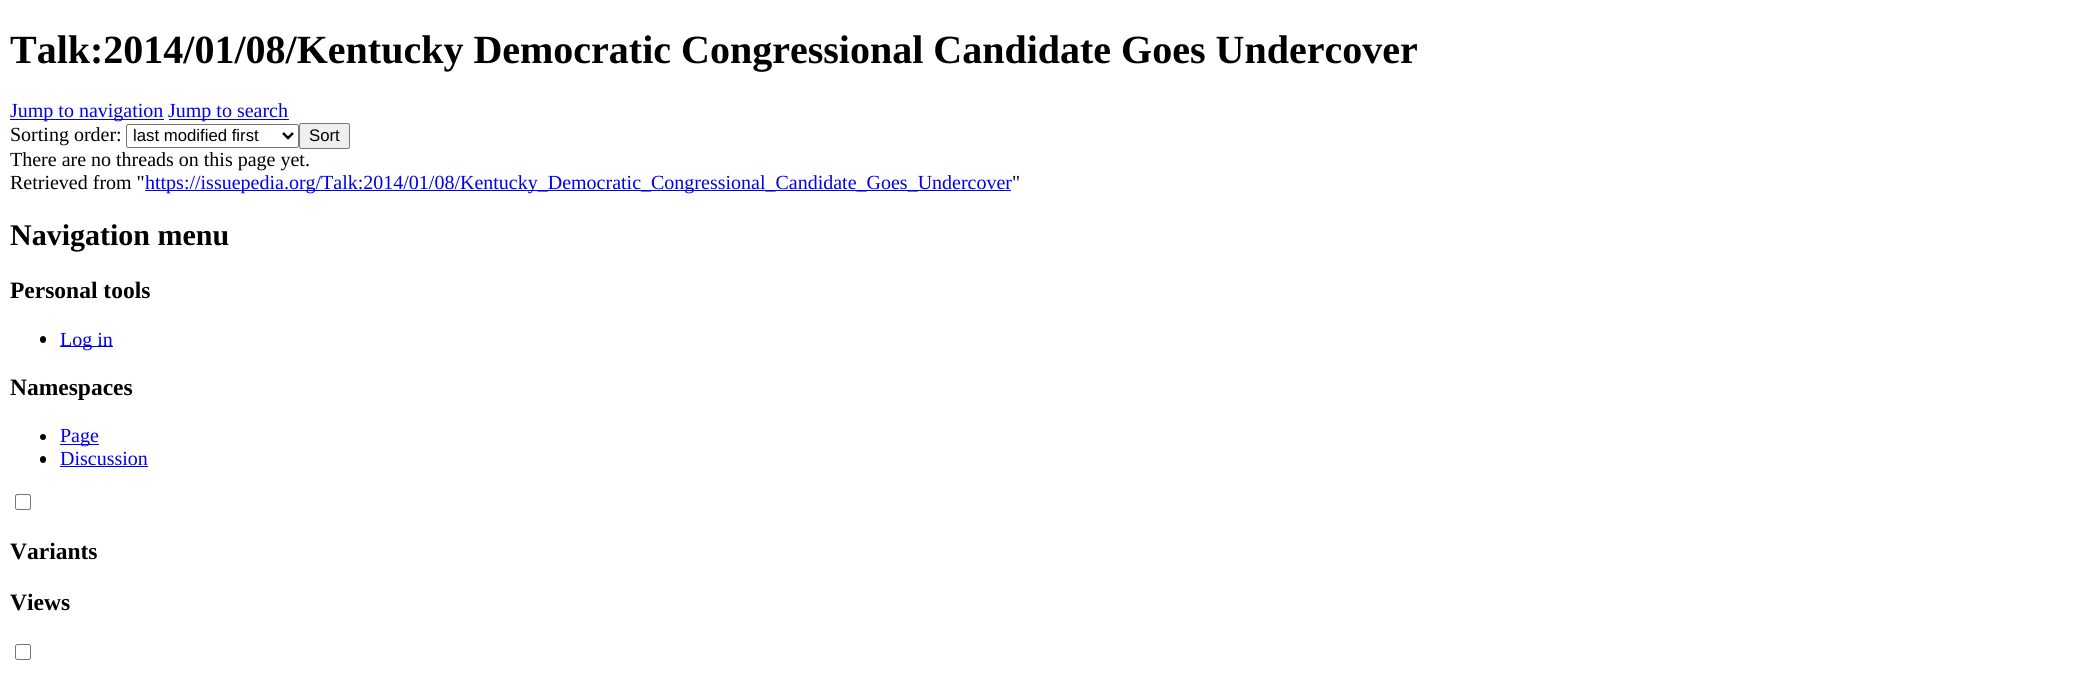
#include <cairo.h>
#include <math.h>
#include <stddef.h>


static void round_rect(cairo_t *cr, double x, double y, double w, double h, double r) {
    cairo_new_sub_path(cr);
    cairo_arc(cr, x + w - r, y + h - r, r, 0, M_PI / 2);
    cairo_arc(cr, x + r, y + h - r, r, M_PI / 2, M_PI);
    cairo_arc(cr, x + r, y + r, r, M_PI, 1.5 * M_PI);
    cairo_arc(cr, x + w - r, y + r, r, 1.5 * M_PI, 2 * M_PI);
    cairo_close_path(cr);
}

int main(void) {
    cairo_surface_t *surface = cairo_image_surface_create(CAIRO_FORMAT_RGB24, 2100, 676);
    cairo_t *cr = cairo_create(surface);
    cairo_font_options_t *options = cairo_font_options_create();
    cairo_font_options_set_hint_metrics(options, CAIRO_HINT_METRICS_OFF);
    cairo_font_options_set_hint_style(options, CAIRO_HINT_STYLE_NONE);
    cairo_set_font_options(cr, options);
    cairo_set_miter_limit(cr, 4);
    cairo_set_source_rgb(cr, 1, 1, 1);
    cairo_paint(cr);
    cairo_select_font_face(cr, "Liberation Serif", CAIRO_FONT_SLANT_NORMAL, CAIRO_FONT_WEIGHT_BOLD);
    cairo_set_font_size(cr, 40);
    cairo_set_source_rgb(cr, 0, 0, 0);
    cairo_move_to(cr, 10, 63);
    cairo_show_text(cr, "Talk:2014/01/08/Kentucky Democratic Congressional Candidate Goes Undercover");
    cairo_set_source_rgb(cr, 0, 0, 0.933);
    cairo_rectangle(cr, 10, 119, 154, 1);
    cairo_fill(cr);
    cairo_select_font_face(cr, "Liberation Serif", CAIRO_FONT_SLANT_NORMAL, CAIRO_FONT_WEIGHT_NORMAL);
    cairo_set_font_size(cr, 20);
    cairo_move_to(cr, 10, 117);
    cairo_show_text(cr, "Jump to navigation");
    cairo_rectangle(cr, 169, 119, 120, 1);
    cairo_fill(cr);
    cairo_move_to(cr, 168, 117);
    cairo_show_text(cr, "Jump to search");
    cairo_set_source_rgb(cr, 0, 0, 0);
    cairo_move_to(cr, 10, 141);
    cairo_show_text(cr, "Sorting order:");
    round_rect(cr, 126.5, 124.5, 172, 23, 2);
    cairo_set_source_rgb(cr, 0.463, 0.463, 0.463);
    cairo_set_line_width(cr, 1);
    cairo_stroke(cr);
    cairo_new_path(cr);
    cairo_move_to(cr, 283, 133);
    cairo_line_to(cr, 288, 138);
    cairo_line_to(cr, 293, 133);
    cairo_set_source_rgb(cr, 0, 0, 0);
    cairo_set_line_width(cr, 2.5);
    cairo_stroke(cr);
    cairo_select_font_face(cr, "Liberation Sans", CAIRO_FONT_SLANT_NORMAL, CAIRO_FONT_WEIGHT_NORMAL);
    cairo_set_font_size(cr, 16.75);
    cairo_move_to(cr, 133, 141);
    cairo_show_text(cr, "last modified first");
    cairo_set_source_rgb(cr, 0.937, 0.937, 0.937);
    round_rect(cr, 299.5, 123.5, 50, 25, 2);
    cairo_fill_preserve(cr);
    cairo_set_source_rgb(cr, 0.463, 0.463, 0.463);
    cairo_set_line_width(cr, 1);
    cairo_stroke(cr);
    cairo_set_source_rgb(cr, 0, 0, 0);
    cairo_move_to(cr, 309, 141);
    cairo_show_text(cr, "Sort");
    cairo_select_font_face(cr, "Liberation Serif", CAIRO_FONT_SLANT_NORMAL, CAIRO_FONT_WEIGHT_NORMAL);
    cairo_set_font_size(cr, 20);
    cairo_move_to(cr, 10, 166);
    cairo_show_text(cr, "There are no threads on this page yet.");
    cairo_move_to(cr, 10, 189);
    cairo_show_text(cr, "Retrieved from \"");
    cairo_set_source_rgb(cr, 0, 0, 0.933);
    cairo_rectangle(cr, 145, 190, 866, 1);
    cairo_fill(cr);
    cairo_move_to(cr, 145, 189);
    cairo_show_text(cr, "https://issuepedia.org/Talk:2014/01/08/Kentucky_Democratic_Congressional_Candidate_Goes_Undercover");
    cairo_set_source_rgb(cr, 0, 0, 0);
    cairo_move_to(cr, 1012, 189);
    cairo_show_text(cr, "\"");
    cairo_select_font_face(cr, "Liberation Serif", CAIRO_FONT_SLANT_NORMAL, CAIRO_FONT_WEIGHT_BOLD);
    cairo_set_font_size(cr, 30);
    cairo_move_to(cr, 10, 245);
    cairo_show_text(cr, "Navigation menu");
    cairo_set_font_size(cr, 23.5);
    cairo_move_to(cr, 10, 298);
    cairo_show_text(cr, "Personal tools");
    round_rect(cr, 40, 336, 6, 7, 3);
    cairo_fill(cr);
    cairo_set_source_rgb(cr, 0, 0, 0.933);
    cairo_rectangle(cr, 60, 346, 53, 1);
    cairo_fill(cr);
    cairo_select_font_face(cr, "Liberation Serif", CAIRO_FONT_SLANT_NORMAL, CAIRO_FONT_WEIGHT_NORMAL);
    cairo_set_font_size(cr, 20);
    cairo_move_to(cr, 60, 346);
    cairo_show_text(cr, "Log in");
    cairo_select_font_face(cr, "Liberation Serif", CAIRO_FONT_SLANT_NORMAL, CAIRO_FONT_WEIGHT_BOLD);
    cairo_set_font_size(cr, 23.5);
    cairo_set_source_rgb(cr, 0, 0, 0);
    cairo_move_to(cr, 10, 395);
    cairo_show_text(cr, "Namespaces");
    cairo_new_path(cr);
    cairo_arc(cr, 43, 437, 3, 0, 2 * M_PI);
    cairo_fill(cr);
    cairo_set_source_rgb(cr, 0, 0, 0.933);
    cairo_rectangle(cr, 60, 444, 39, 1);
    cairo_fill(cr);
    cairo_select_font_face(cr, "Liberation Serif", CAIRO_FONT_SLANT_NORMAL, CAIRO_FONT_WEIGHT_NORMAL);
    cairo_set_font_size(cr, 20);
    cairo_move_to(cr, 60, 442);
    cairo_show_text(cr, "Page");
    cairo_set_source_rgb(cr, 0, 0, 0);
    round_rect(cr, 40, 456, 6, 7, 3);
    cairo_fill(cr);
    cairo_set_source_rgb(cr, 0, 0, 0.933);
    cairo_move_to(cr, 60, 465);
    cairo_show_text(cr, "Discussion");
    cairo_rectangle(cr, 60, 466, 88, 1);
    cairo_fill(cr);
    round_rect(cr, 15.5, 494.5, 15, 15, 2);
    cairo_set_source_rgb(cr, 0.463, 0.463, 0.463);
    cairo_stroke(cr);
    cairo_select_font_face(cr, "Liberation Serif", CAIRO_FONT_SLANT_NORMAL, CAIRO_FONT_WEIGHT_BOLD);
    cairo_set_font_size(cr, 23.5);
    cairo_set_source_rgb(cr, 0, 0, 0);
    cairo_move_to(cr, 10, 559);
    cairo_show_text(cr, "Variants");
    cairo_move_to(cr, 10, 610);
    cairo_show_text(cr, "Views");
    round_rect(cr, 15.5, 644.5, 15, 15, 2);
    cairo_set_source_rgb(cr, 0.463, 0.463, 0.463);
    cairo_stroke(cr);
    cairo_surface_write_to_png(surface, "page.png");
    cairo_font_options_destroy(options);
    cairo_destroy(cr);
    cairo_surface_destroy(surface);
    return 0;
}
